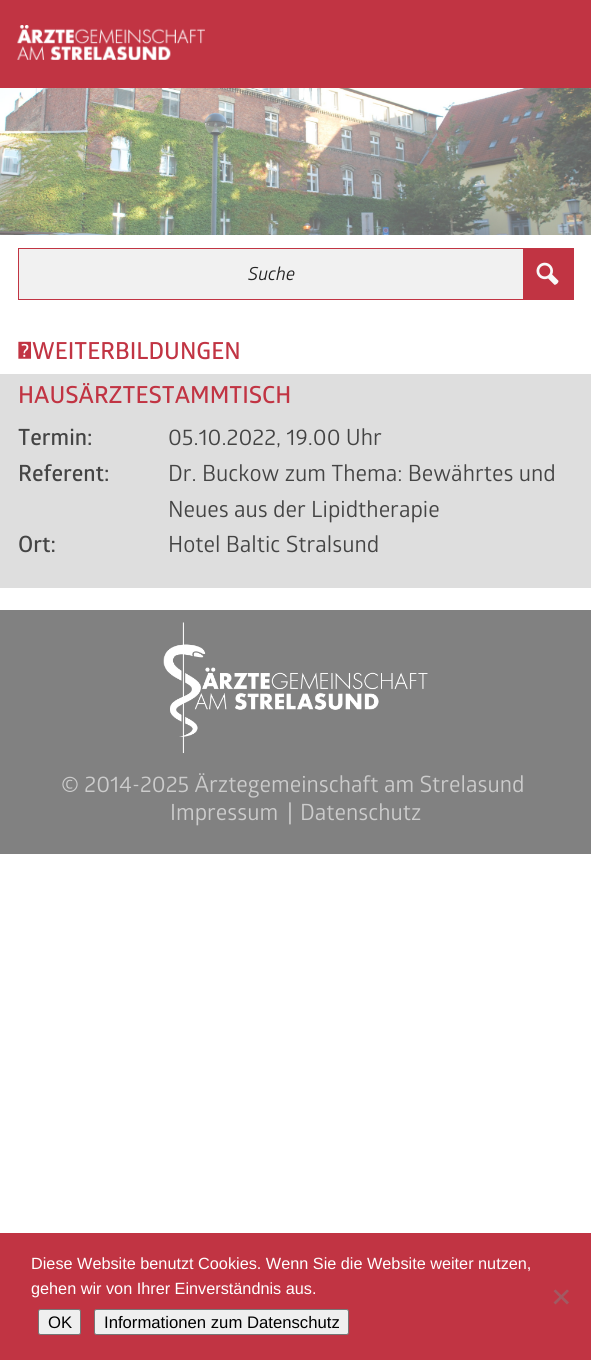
#include <cairo.h>
#include <math.h>
#include <stddef.h>


static void round_rect(cairo_t *cr, double x, double y, double w, double h, double r) {
    cairo_new_sub_path(cr);
    cairo_arc(cr, x + w - r, y + h - r, r, 0, M_PI / 2);
    cairo_arc(cr, x + r, y + h - r, r, M_PI / 2, M_PI);
    cairo_arc(cr, x + r, y + r, r, M_PI, 1.5 * M_PI);
    cairo_arc(cr, x + w - r, y + r, r, 1.5 * M_PI, 2 * M_PI);
    cairo_close_path(cr);
}

static void picture(cairo_t *cr, const char *path, double x, double y, double w, double h) {
    cairo_surface_t *image = cairo_image_surface_create_from_png(path);
    cairo_save(cr);
    cairo_set_source_surface(cr, image, x, y);
    cairo_rectangle(cr, x, y, w, h);
    cairo_fill(cr);
    cairo_restore(cr);
    cairo_surface_destroy(image);
}

int main(void) {
    cairo_surface_t *surface = cairo_image_surface_create(CAIRO_FORMAT_RGB24, 591, 1360);
    cairo_t *cr = cairo_create(surface);
    cairo_font_options_t *options = cairo_font_options_create();
    cairo_font_options_set_hint_metrics(options, CAIRO_HINT_METRICS_OFF);
    cairo_font_options_set_hint_style(options, CAIRO_HINT_STYLE_NONE);
    cairo_set_font_options(cr, options);
    cairo_set_miter_limit(cr, 4);
    cairo_set_source_rgb(cr, 1, 1, 1);
    cairo_paint(cr);
    cairo_set_source_rgb(cr, 0.757, 0.204, 0.263);
    cairo_rectangle(cr, 0, 0, 591, 88);
    cairo_fill(cr);
    picture(cr, "img1.png", 17, 25, 188, 35);
    picture(cr, "img2.png", 0, 88, 591, 147);
    cairo_set_source_rgb(cr, 0.945, 0.945, 0.945);
    cairo_rectangle(cr, 19, 249, 504, 50);
    cairo_fill(cr);
    cairo_rectangle(cr, 18.5, 248.5, 555, 51);
    cairo_set_source_rgb(cr, 0.757, 0.204, 0.263);
    cairo_set_line_width(cr, 1);
    cairo_stroke(cr);
    cairo_select_font_face(cr, "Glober", CAIRO_FONT_SLANT_ITALIC, CAIRO_FONT_WEIGHT_NORMAL);
    cairo_set_font_size(cr, 18);
    cairo_set_source_rgb(cr, 0.141, 0.141, 0.141);
    cairo_move_to(cr, 248, 280);
    cairo_show_text(cr, "Suche");
    cairo_set_source_rgb(cr, 0.757, 0.204, 0.263);
    cairo_rectangle(cr, 523, 249, 50, 50);
    cairo_fill(cr);
    picture(cr, "img3.png", 536, 262, 23, 23);
    picture(cr, "img4.png", 18, 341, 14, 18);
    cairo_select_font_face(cr, "Glober SemiBold", CAIRO_FONT_SLANT_NORMAL, CAIRO_FONT_WEIGHT_NORMAL);
    cairo_set_font_size(cr, 23.5);
    cairo_move_to(cr, 32, 359);
    cairo_show_text(cr, "WEITERBILDUNGEN");
    cairo_set_source_rgb(cr, 0.871, 0.871, 0.871);
    cairo_rectangle(cr, 0, 374, 591, 214);
    cairo_fill(cr);
    cairo_set_source_rgb(cr, 0.757, 0.204, 0.263);
    cairo_move_to(cr, 18, 403);
    cairo_show_text(cr, "HAUSÄRZTESTAMMTISCH");
    cairo_set_font_size(cr, 22.4);
    cairo_set_source_rgb(cr, 0.267, 0.267, 0.267);
    cairo_move_to(cr, 18, 445);
    cairo_show_text(cr, "Termin:");
    cairo_select_font_face(cr, "Glober", CAIRO_FONT_SLANT_NORMAL, CAIRO_FONT_WEIGHT_NORMAL);
    cairo_move_to(cr, 168, 445);
    cairo_show_text(cr, "05.10.2022, 19.00 Uhr");
    cairo_select_font_face(cr, "Glober SemiBold", CAIRO_FONT_SLANT_NORMAL, CAIRO_FONT_WEIGHT_NORMAL);
    cairo_move_to(cr, 18, 481);
    cairo_show_text(cr, "Referent:");
    cairo_select_font_face(cr, "Glober", CAIRO_FONT_SLANT_NORMAL, CAIRO_FONT_WEIGHT_NORMAL);
    cairo_move_to(cr, 168, 481);
    cairo_show_text(cr, "Dr. Buckow zum Thema: Bewährtes und");
    cairo_move_to(cr, 168, 517);
    cairo_show_text(cr, "Neues aus der Lipidtherapie");
    cairo_select_font_face(cr, "Glober SemiBold", CAIRO_FONT_SLANT_NORMAL, CAIRO_FONT_WEIGHT_NORMAL);
    cairo_move_to(cr, 18, 552);
    cairo_show_text(cr, "Ort:");
    cairo_select_font_face(cr, "Glober", CAIRO_FONT_SLANT_NORMAL, CAIRO_FONT_WEIGHT_NORMAL);
    cairo_move_to(cr, 168, 552);
    cairo_show_text(cr, "Hotel Baltic Stralsund");
    cairo_set_source_rgb(cr, 0.506, 0.506, 0.506);
    cairo_rectangle(cr, 0, 610, 591, 244);
    cairo_fill(cr);
    picture(cr, "img5.png", 163, 622, 265, 132);
    cairo_set_source_rgb(cr, 0.8, 0.8, 0.8);
    cairo_move_to(cr, 61, 792);
    cairo_show_text(cr, "© 2014-2025 Ärztegemeinschaft am Strelasund");
    cairo_move_to(cr, 170, 820);
    cairo_show_text(cr, "Impressum");
    cairo_move_to(cr, 287, 820);
    cairo_show_text(cr, "|");
    cairo_move_to(cr, 300, 820);
    cairo_show_text(cr, "Datenschutz");
    cairo_set_source_rgb(cr, 0.757, 0.204, 0.263);
    cairo_rectangle(cr, 0, 1233, 591, 127);
    cairo_fill(cr);
    cairo_select_font_face(cr, "Liberation Sans", CAIRO_FONT_SLANT_NORMAL, CAIRO_FONT_WEIGHT_NORMAL);
    cairo_set_font_size(cr, 16.25);
    cairo_set_source_rgb(cr, 1, 1, 1);
    cairo_move_to(cr, 31, 1269);
    cairo_show_text(cr, "Diese Website benutzt Cookies. Wenn Sie die Website weiter nutzen,");
    cairo_move_to(cr, 31, 1294);
    cairo_show_text(cr, "gehen wir von Ihrer Einverständnis aus.");
    cairo_set_source_rgb(cr, 0.631, 0.353, 0.384);
    cairo_new_path(cr);
    cairo_move_to(cr, 567, 1289.5);
    cairo_line_to(cr, 569, 1291);
    cairo_line_to(cr, 555.5, 1304.5);
    cairo_line_to(cr, 553.5, 1302.5);
    cairo_close_path(cr);
    cairo_fill(cr);
    cairo_new_path(cr);
    cairo_move_to(cr, 553.5, 1291);
    cairo_line_to(cr, 555.5, 1289.5);
    cairo_line_to(cr, 569, 1302.5);
    cairo_line_to(cr, 567, 1304.5);
    cairo_close_path(cr);
    cairo_fill(cr);
    cairo_set_source_rgb(cr, 0.937, 0.937, 0.937);
    round_rect(cr, 38.5, 1309.5, 42, 25, 2);
    cairo_fill_preserve(cr);
    cairo_set_source_rgb(cr, 0.463, 0.463, 0.463);
    cairo_stroke(cr);
    cairo_set_font_size(cr, 16.7);
    cairo_set_source_rgb(cr, 0, 0, 0);
    cairo_move_to(cr, 48, 1328);
    cairo_show_text(cr, "OK");
    cairo_set_source_rgb(cr, 0.937, 0.937, 0.937);
    round_rect(cr, 94.5, 1309.5, 254, 25, 2);
    cairo_fill_preserve(cr);
    cairo_set_source_rgb(cr, 0.463, 0.463, 0.463);
    cairo_stroke(cr);
    cairo_set_source_rgb(cr, 0, 0, 0);
    cairo_move_to(cr, 104, 1328);
    cairo_show_text(cr, "Informationen zum Datenschutz");
    cairo_surface_write_to_png(surface, "page.png");
    cairo_font_options_destroy(options);
    cairo_destroy(cr);
    cairo_surface_destroy(surface);
    return 0;
}
